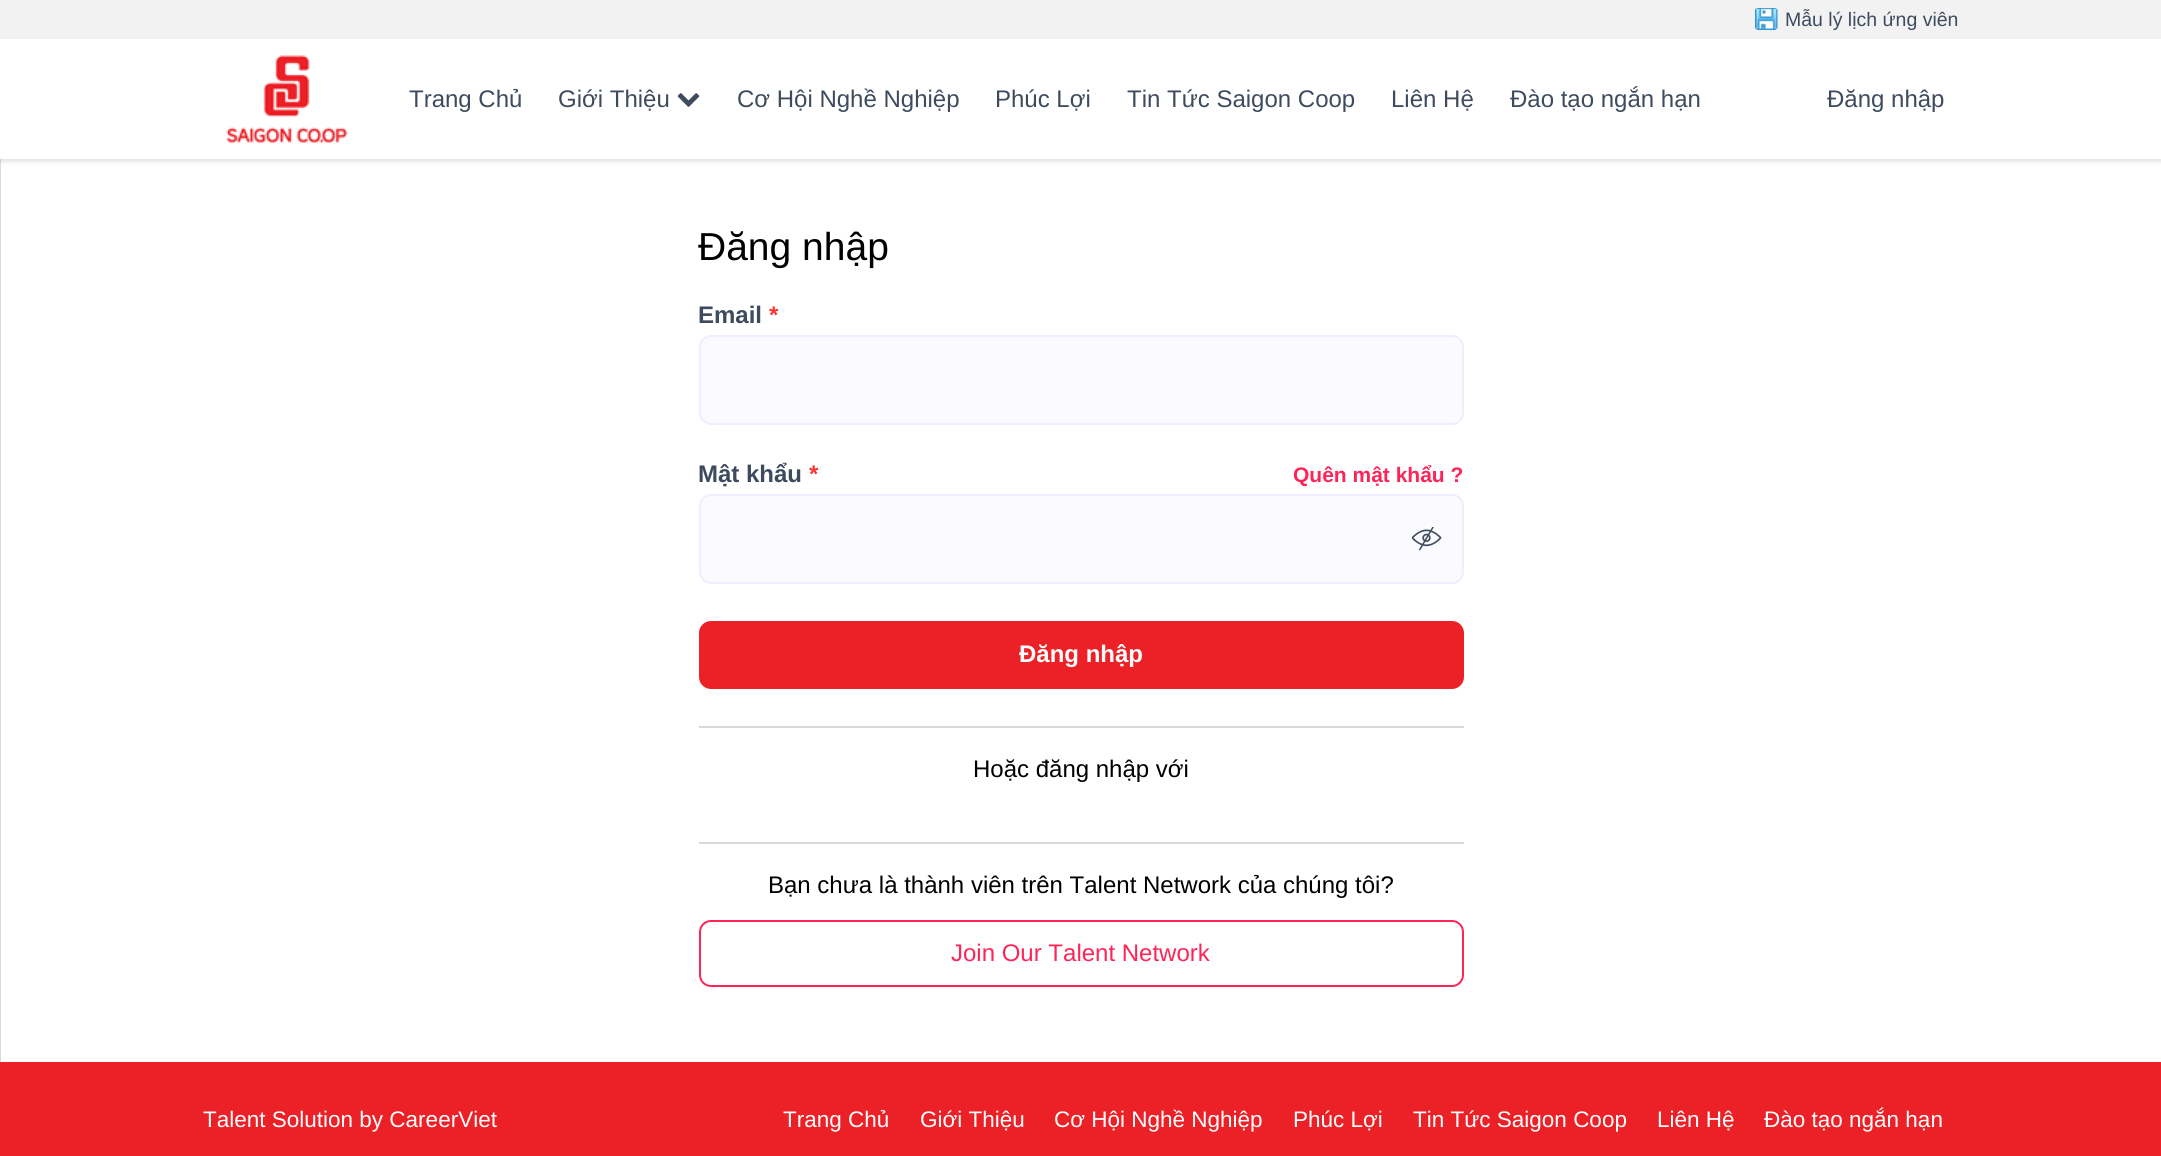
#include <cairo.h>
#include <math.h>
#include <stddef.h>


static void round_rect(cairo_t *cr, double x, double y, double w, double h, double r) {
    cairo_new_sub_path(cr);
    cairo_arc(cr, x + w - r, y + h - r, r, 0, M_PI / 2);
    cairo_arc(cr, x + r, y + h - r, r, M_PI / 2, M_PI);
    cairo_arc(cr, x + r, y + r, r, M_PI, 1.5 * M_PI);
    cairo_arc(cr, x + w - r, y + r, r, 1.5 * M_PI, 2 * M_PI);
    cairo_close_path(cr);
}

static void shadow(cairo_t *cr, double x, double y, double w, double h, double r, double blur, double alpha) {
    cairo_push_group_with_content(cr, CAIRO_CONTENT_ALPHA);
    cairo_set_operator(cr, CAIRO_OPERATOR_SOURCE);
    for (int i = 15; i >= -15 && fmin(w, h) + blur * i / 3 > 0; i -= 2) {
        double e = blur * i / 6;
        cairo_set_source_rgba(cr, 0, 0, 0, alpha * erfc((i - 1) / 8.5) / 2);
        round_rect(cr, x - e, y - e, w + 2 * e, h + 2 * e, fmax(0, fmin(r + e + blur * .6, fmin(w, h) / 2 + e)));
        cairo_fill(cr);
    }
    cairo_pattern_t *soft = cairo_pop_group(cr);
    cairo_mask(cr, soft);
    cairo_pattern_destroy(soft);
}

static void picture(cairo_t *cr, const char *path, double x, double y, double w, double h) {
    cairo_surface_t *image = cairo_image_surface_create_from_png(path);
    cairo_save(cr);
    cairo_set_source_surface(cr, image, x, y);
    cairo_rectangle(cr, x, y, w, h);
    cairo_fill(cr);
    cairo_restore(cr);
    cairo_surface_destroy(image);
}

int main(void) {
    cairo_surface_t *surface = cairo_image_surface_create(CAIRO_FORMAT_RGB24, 2161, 1156);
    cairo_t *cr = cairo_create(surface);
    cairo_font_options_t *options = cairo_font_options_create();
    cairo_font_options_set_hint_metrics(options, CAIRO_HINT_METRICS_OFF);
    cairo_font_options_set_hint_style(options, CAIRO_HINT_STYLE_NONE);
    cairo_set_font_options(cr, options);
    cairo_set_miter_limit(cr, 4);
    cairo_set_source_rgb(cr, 1, 1, 1);
    cairo_paint(cr);
    cairo_set_source_rgb(cr, 0.875, 0.855, 0.855);
    cairo_rectangle(cr, 0, 159, 1, 903);
    cairo_fill(cr);
    cairo_set_source_rgb(cr, 0, 0, 0);
    shadow(cr, 0, 3, 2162, 159, 0, 1.5, 0.1);
    cairo_set_source_rgb(cr, 1, 1, 1);
    cairo_rectangle(cr, 0, 39, 2161, 120);
    cairo_fill(cr);
    cairo_set_source_rgb(cr, 0.949, 0.949, 0.949);
    cairo_rectangle(cr, 0, 0, 2161, 39);
    cairo_fill(cr);
    picture(cr, "img1.png", 1755, 8, 23, 22);
    cairo_select_font_face(cr, "Liberation Sans", CAIRO_FONT_SLANT_NORMAL, CAIRO_FONT_WEIGHT_NORMAL);
    cairo_set_font_size(cr, 19.5);
    cairo_set_source_rgb(cr, 0.243, 0.294, 0.369);
    cairo_move_to(cr, 1785, 26);
    cairo_show_text(cr, "Mẫu lý lịch ứng viên");
    picture(cr, "img2.png", 226, 55, 121, 88);
    cairo_set_font_size(cr, 24);
    cairo_move_to(cr, 409, 107);
    cairo_show_text(cr, "Trang Chủ");
    cairo_move_to(cr, 558, 107);
    cairo_show_text(cr, "Giới Thiệu");
    picture(cr, "img3.png", 677, 93, 23, 14);
    cairo_move_to(cr, 737, 107);
    cairo_show_text(cr, "Cơ Hội Nghề Nghiệp");
    cairo_move_to(cr, 995, 107);
    cairo_show_text(cr, "Phúc Lợi");
    cairo_move_to(cr, 1127, 107);
    cairo_show_text(cr, "Tin Tức Saigon Coop");
    cairo_move_to(cr, 1391, 107);
    cairo_show_text(cr, "Liên Hệ");
    cairo_move_to(cr, 1510, 107);
    cairo_show_text(cr, "Đào tạo ngắn hạn");
    cairo_move_to(cr, 1827, 107);
    cairo_show_text(cr, "Đăng nhập");
    cairo_set_font_size(cr, 39);
    cairo_set_source_rgb(cr, 0, 0, 0);
    cairo_move_to(cr, 698, 260);
    cairo_show_text(cr, "Đăng nhập");
    cairo_select_font_face(cr, "Liberation Sans", CAIRO_FONT_SLANT_NORMAL, CAIRO_FONT_WEIGHT_BOLD);
    cairo_set_font_size(cr, 24);
    cairo_set_source_rgb(cr, 0.243, 0.294, 0.369);
    cairo_move_to(cr, 698, 323);
    cairo_show_text(cr, "Email");
    cairo_set_source_rgb(cr, 1, 0.2, 0.2);
    cairo_move_to(cr, 769, 323);
    cairo_show_text(cr, "*");
    cairo_set_source_rgb(cr, 0.984, 0.98, 1);
    round_rect(cr, 700, 336, 763, 88, 11);
    cairo_fill_preserve(cr);
    cairo_set_source_rgb(cr, 0.941, 0.929, 1);
    cairo_stroke(cr);
    cairo_set_source_rgb(cr, 0.243, 0.294, 0.369);
    cairo_move_to(cr, 698, 482);
    cairo_show_text(cr, "Mật khẩu");
    cairo_set_source_rgb(cr, 1, 0.2, 0.2);
    cairo_move_to(cr, 809, 482);
    cairo_show_text(cr, "*");
    cairo_set_font_size(cr, 21);
    cairo_set_source_rgb(cr, 1, 0.141, 0.345);
    cairo_move_to(cr, 1293, 482);
    cairo_show_text(cr, "Quên mật khẩu ?");
    cairo_set_source_rgb(cr, 0.984, 0.98, 1);
    round_rect(cr, 700, 495, 763, 88, 11);
    cairo_fill_preserve(cr);
    cairo_set_source_rgb(cr, 0.941, 0.929, 1);
    cairo_stroke(cr);
    picture(cr, "img4.png", 1412, 527, 30, 24);
    cairo_set_source_rgb(cr, 0.925, 0.129, 0.153);
    round_rect(cr, 699, 621, 765, 68, 12);
    cairo_fill(cr);
    cairo_set_font_size(cr, 24);
    cairo_set_source_rgb(cr, 1, 1, 1);
    cairo_move_to(cr, 1019, 662);
    cairo_show_text(cr, "Đăng nhập");
    cairo_set_source_rgb(cr, 0.851, 0.851, 0.851);
    cairo_rectangle(cr, 699, 726, 765, 2);
    cairo_fill(cr);
    cairo_select_font_face(cr, "Liberation Sans", CAIRO_FONT_SLANT_NORMAL, CAIRO_FONT_WEIGHT_NORMAL);
    cairo_set_source_rgb(cr, 0, 0, 0);
    cairo_move_to(cr, 973, 777);
    cairo_show_text(cr, "Hoặc đăng nhập với");
    cairo_set_source_rgb(cr, 0.851, 0.851, 0.851);
    cairo_rectangle(cr, 699, 842, 765, 2);
    cairo_fill(cr);
    cairo_set_source_rgb(cr, 0, 0, 0);
    cairo_move_to(cr, 768, 893);
    cairo_show_text(cr, "Bạn chưa là thành viên trên Talent Network của chúng tôi?");
    round_rect(cr, 700, 921, 763, 65, 11);
    cairo_set_source_rgb(cr, 1, 0.141, 0.345);
    cairo_stroke(cr);
    cairo_move_to(cr, 951, 961);
    cairo_show_text(cr, "Join Our Talent Network");
    cairo_set_source_rgb(cr, 0.925, 0.129, 0.153);
    cairo_rectangle(cr, 0, 1062, 2161, 94);
    cairo_fill(cr);
    cairo_set_font_size(cr, 22.5);
    cairo_set_source_rgb(cr, 1, 1, 1);
    cairo_move_to(cr, 203, 1127);
    cairo_show_text(cr, "Talent Solution by CareerViet");
    cairo_move_to(cr, 783, 1127);
    cairo_show_text(cr, "Trang Chủ");
    cairo_move_to(cr, 920, 1127);
    cairo_show_text(cr, "Giới Thiệu");
    cairo_move_to(cr, 1054, 1127);
    cairo_show_text(cr, "Cơ Hội Nghề Nghiệp");
    cairo_move_to(cr, 1293, 1127);
    cairo_show_text(cr, "Phúc Lợi");
    cairo_move_to(cr, 1413, 1127);
    cairo_show_text(cr, "Tin Tức Saigon Coop");
    cairo_move_to(cr, 1657, 1127);
    cairo_show_text(cr, "Liên Hệ");
    cairo_move_to(cr, 1764, 1127);
    cairo_show_text(cr, "Đào tạo ngắn hạn");
    cairo_surface_write_to_png(surface, "page.png");
    cairo_font_options_destroy(options);
    cairo_destroy(cr);
    cairo_surface_destroy(surface);
    return 0;
}
